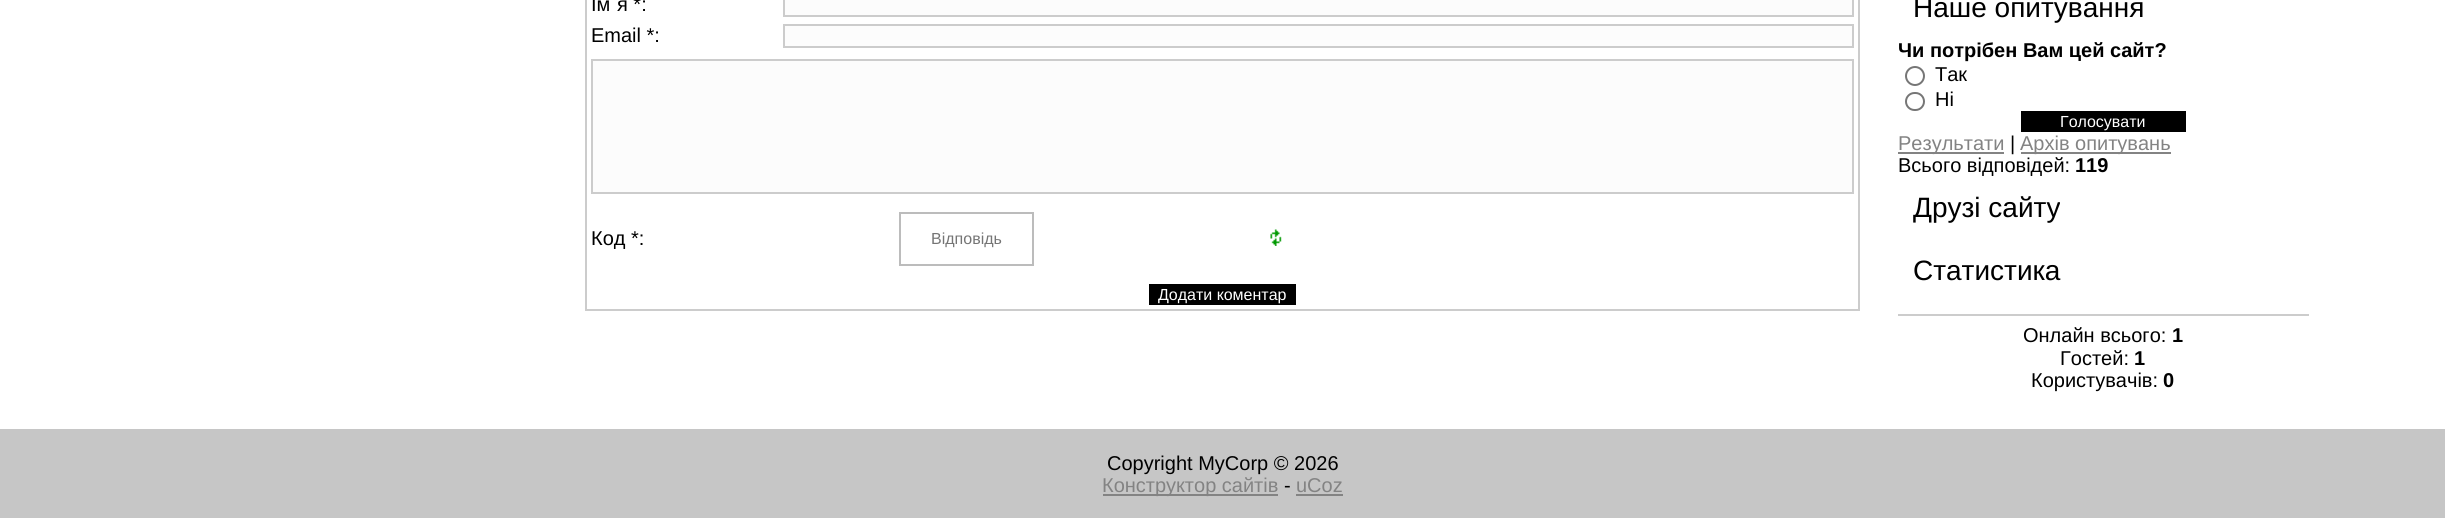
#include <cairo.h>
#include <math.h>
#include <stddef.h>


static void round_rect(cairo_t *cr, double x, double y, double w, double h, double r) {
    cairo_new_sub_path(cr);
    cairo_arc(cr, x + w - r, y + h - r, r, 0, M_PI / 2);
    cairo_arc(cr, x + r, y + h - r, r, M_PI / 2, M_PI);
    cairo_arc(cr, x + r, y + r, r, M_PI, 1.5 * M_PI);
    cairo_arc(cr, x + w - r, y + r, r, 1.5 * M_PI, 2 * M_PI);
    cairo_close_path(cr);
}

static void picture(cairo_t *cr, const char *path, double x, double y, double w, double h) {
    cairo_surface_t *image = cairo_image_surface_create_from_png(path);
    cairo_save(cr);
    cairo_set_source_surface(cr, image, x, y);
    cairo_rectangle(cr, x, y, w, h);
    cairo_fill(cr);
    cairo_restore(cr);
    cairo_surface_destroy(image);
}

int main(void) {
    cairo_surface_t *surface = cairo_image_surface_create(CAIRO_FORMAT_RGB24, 2445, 518);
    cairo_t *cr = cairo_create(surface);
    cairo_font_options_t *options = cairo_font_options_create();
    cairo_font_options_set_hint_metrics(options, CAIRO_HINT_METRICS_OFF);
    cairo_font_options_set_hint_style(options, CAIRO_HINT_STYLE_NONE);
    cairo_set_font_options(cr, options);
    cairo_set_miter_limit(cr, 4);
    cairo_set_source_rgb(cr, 1, 1, 1);
    cairo_paint(cr);
    cairo_rectangle(cr, 586, -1, 1273, 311);
    cairo_set_source_rgb(cr, 0.8, 0.8, 0.8);
    cairo_stroke(cr);
    cairo_select_font_face(cr, "Liberation Sans", CAIRO_FONT_SLANT_NORMAL, CAIRO_FONT_WEIGHT_NORMAL);
    cairo_set_font_size(cr, 20);
    cairo_set_source_rgb(cr, 0, 0, 0);
    cairo_move_to(cr, 591, 11);
    cairo_show_text(cr, "Ім`я *:");
    cairo_set_source_rgb(cr, 0.988, 0.988, 0.988);
    cairo_rectangle(cr, 784, -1, 1069, 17);
    cairo_fill_preserve(cr);
    cairo_set_source_rgb(cr, 0.8, 0.8, 0.8);
    cairo_stroke(cr);
    cairo_set_source_rgb(cr, 0, 0, 0);
    cairo_move_to(cr, 591, 42);
    cairo_show_text(cr, "Email *:");
    cairo_set_source_rgb(cr, 0.988, 0.988, 0.988);
    cairo_rectangle(cr, 784, 25, 1069, 22);
    cairo_fill_preserve(cr);
    cairo_set_source_rgb(cr, 0.8, 0.8, 0.8);
    cairo_stroke(cr);
    cairo_set_source_rgb(cr, 0.988, 0.988, 0.988);
    cairo_rectangle(cr, 592, 60, 1261, 133);
    cairo_fill_preserve(cr);
    cairo_set_source_rgb(cr, 0.8, 0.8, 0.8);
    cairo_stroke(cr);
    cairo_set_source_rgb(cr, 0, 0, 0);
    cairo_move_to(cr, 591, 245);
    cairo_show_text(cr, "Код *:");
    cairo_rectangle(cr, 900, 213, 133, 52);
    cairo_set_source_rgb(cr, 0.737, 0.737, 0.737);
    cairo_stroke(cr);
    cairo_set_font_size(cr, 16);
    cairo_set_source_rgb(cr, 0.459, 0.459, 0.459);
    cairo_move_to(cr, 931, 244);
    cairo_show_text(cr, "Відповідь");
    picture(cr, "img1.png", 1270, 229, 12, 17);
    cairo_set_source_rgb(cr, 0, 0, 0);
    cairo_rectangle(cr, 1149, 284, 147, 21);
    cairo_fill(cr);
    cairo_set_source_rgb(cr, 1, 1, 1);
    cairo_move_to(cr, 1158, 300);
    cairo_show_text(cr, "Додати коментар");
    cairo_set_font_size(cr, 28);
    cairo_set_source_rgb(cr, 0, 0, 0);
    cairo_move_to(cr, 1913, 17);
    cairo_show_text(cr, "Наше опитування");
    cairo_select_font_face(cr, "Liberation Sans", CAIRO_FONT_SLANT_NORMAL, CAIRO_FONT_WEIGHT_BOLD);
    cairo_set_font_size(cr, 20);
    cairo_move_to(cr, 1898, 57);
    cairo_show_text(cr, "Чи потрібен Вам цей сайт?");
    cairo_new_path(cr);
    cairo_arc(cr, 1915, 76, 9, 0, 2 * M_PI);
    cairo_set_source_rgb(cr, 0.463, 0.463, 0.463);
    cairo_stroke(cr);
    cairo_select_font_face(cr, "Liberation Sans", CAIRO_FONT_SLANT_NORMAL, CAIRO_FONT_WEIGHT_NORMAL);
    cairo_set_source_rgb(cr, 0, 0, 0);
    cairo_move_to(cr, 1935, 81);
    cairo_show_text(cr, "Так");
    round_rect(cr, 1906, 93, 18, 17, 8.5);
    cairo_set_source_rgb(cr, 0.463, 0.463, 0.463);
    cairo_stroke(cr);
    cairo_set_source_rgb(cr, 0, 0, 0);
    cairo_move_to(cr, 1935, 106);
    cairo_show_text(cr, "Ні");
    cairo_rectangle(cr, 2021, 111, 165, 21);
    cairo_fill(cr);
    cairo_set_font_size(cr, 16);
    cairo_set_source_rgb(cr, 1, 1, 1);
    cairo_move_to(cr, 2060, 127);
    cairo_show_text(cr, "Голосувати");
    cairo_set_source_rgb(cr, 0.514, 0.514, 0.514);
    cairo_rectangle(cr, 1898, 152, 106, 2);
    cairo_fill(cr);
    cairo_set_font_size(cr, 20);
    cairo_move_to(cr, 1898, 150);
    cairo_show_text(cr, "Результати");
    cairo_set_source_rgb(cr, 0, 0, 0);
    cairo_move_to(cr, 2010, 150);
    cairo_show_text(cr, "|");
    cairo_set_source_rgb(cr, 0.514, 0.514, 0.514);
    cairo_rectangle(cr, 2021, 152, 150, 2);
    cairo_fill(cr);
    cairo_move_to(cr, 2020, 150);
    cairo_show_text(cr, "Архів опитувань");
    cairo_set_source_rgb(cr, 0, 0, 0);
    cairo_move_to(cr, 1898, 172);
    cairo_show_text(cr, "Всього відповідей:");
    cairo_select_font_face(cr, "Liberation Sans", CAIRO_FONT_SLANT_NORMAL, CAIRO_FONT_WEIGHT_BOLD);
    cairo_move_to(cr, 2075, 172);
    cairo_show_text(cr, "119");
    cairo_select_font_face(cr, "Liberation Sans", CAIRO_FONT_SLANT_NORMAL, CAIRO_FONT_WEIGHT_NORMAL);
    cairo_set_font_size(cr, 28);
    cairo_move_to(cr, 1913, 217);
    cairo_show_text(cr, "Друзі сайту");
    cairo_move_to(cr, 1913, 280);
    cairo_show_text(cr, "Статистика");
    cairo_set_source_rgb(cr, 0.8, 0.8, 0.8);
    cairo_rectangle(cr, 1898, 314, 411, 2);
    cairo_fill(cr);
    cairo_set_font_size(cr, 20);
    cairo_set_source_rgb(cr, 0, 0, 0);
    cairo_move_to(cr, 2023, 342);
    cairo_show_text(cr, "Онлайн всього:");
    cairo_select_font_face(cr, "Liberation Sans", CAIRO_FONT_SLANT_NORMAL, CAIRO_FONT_WEIGHT_BOLD);
    cairo_move_to(cr, 2172, 342);
    cairo_show_text(cr, "1");
    cairo_select_font_face(cr, "Liberation Sans", CAIRO_FONT_SLANT_NORMAL, CAIRO_FONT_WEIGHT_NORMAL);
    cairo_move_to(cr, 2060, 365);
    cairo_show_text(cr, "Гостей:");
    cairo_select_font_face(cr, "Liberation Sans", CAIRO_FONT_SLANT_NORMAL, CAIRO_FONT_WEIGHT_BOLD);
    cairo_move_to(cr, 2134, 365);
    cairo_show_text(cr, "1");
    cairo_select_font_face(cr, "Liberation Sans", CAIRO_FONT_SLANT_NORMAL, CAIRO_FONT_WEIGHT_NORMAL);
    cairo_move_to(cr, 2031, 387);
    cairo_show_text(cr, "Користувачів:");
    cairo_select_font_face(cr, "Liberation Sans", CAIRO_FONT_SLANT_NORMAL, CAIRO_FONT_WEIGHT_BOLD);
    cairo_move_to(cr, 2163, 387);
    cairo_show_text(cr, "0");
    cairo_set_source_rgb(cr, 0.776, 0.776, 0.776);
    cairo_rectangle(cr, 0, 429, 2445, 89);
    cairo_fill(cr);
    cairo_select_font_face(cr, "Liberation Sans", CAIRO_FONT_SLANT_NORMAL, CAIRO_FONT_WEIGHT_NORMAL);
    cairo_set_source_rgb(cr, 0, 0, 0);
    cairo_move_to(cr, 1107, 470);
    cairo_show_text(cr, "Copyright MyCorp © 2026");
    cairo_set_source_rgb(cr, 0.514, 0.514, 0.514);
    cairo_rectangle(cr, 1103, 494, 175, 2);
    cairo_fill(cr);
    cairo_move_to(cr, 1102, 492);
    cairo_show_text(cr, "Конструктор сайтів");
    cairo_set_source_rgb(cr, 0, 0, 0);
    cairo_move_to(cr, 1284, 492);
    cairo_show_text(cr, "-");
    cairo_set_source_rgb(cr, 0.514, 0.514, 0.514);
    cairo_move_to(cr, 1296, 492);
    cairo_show_text(cr, "uCoz");
    cairo_rectangle(cr, 1296, 494, 47, 2);
    cairo_fill(cr);
    cairo_surface_write_to_png(surface, "page.png");
    cairo_font_options_destroy(options);
    cairo_destroy(cr);
    cairo_surface_destroy(surface);
    return 0;
}
